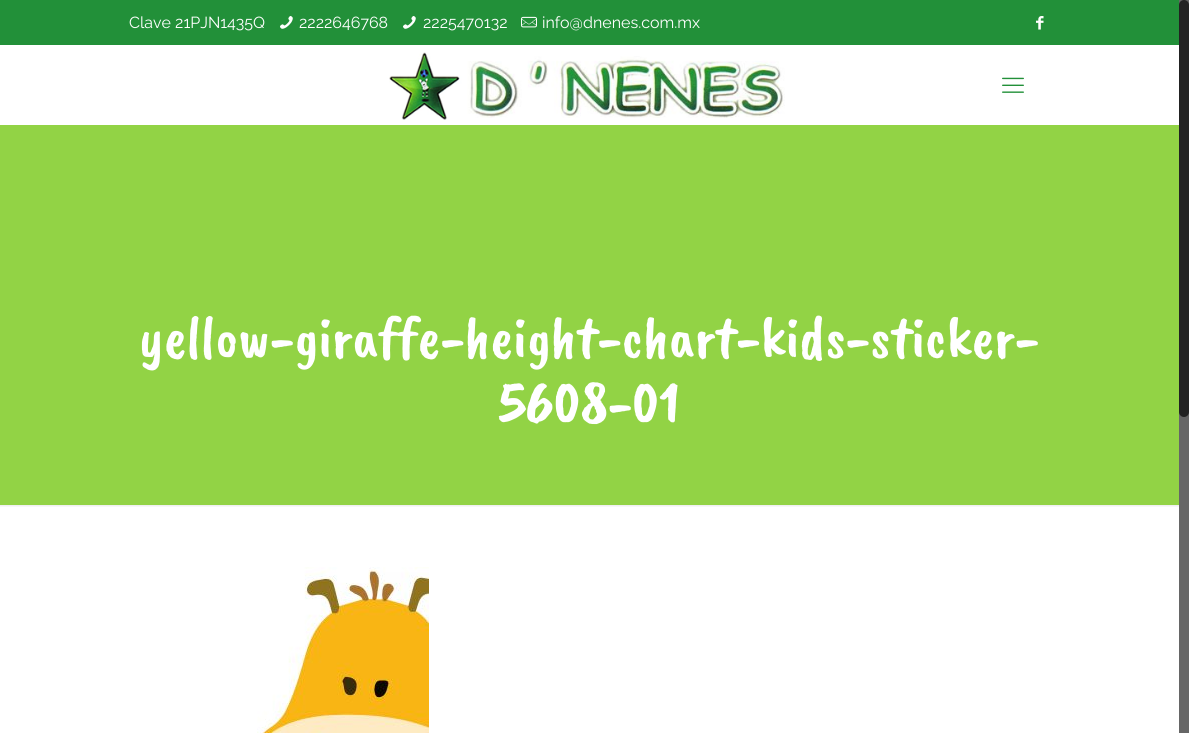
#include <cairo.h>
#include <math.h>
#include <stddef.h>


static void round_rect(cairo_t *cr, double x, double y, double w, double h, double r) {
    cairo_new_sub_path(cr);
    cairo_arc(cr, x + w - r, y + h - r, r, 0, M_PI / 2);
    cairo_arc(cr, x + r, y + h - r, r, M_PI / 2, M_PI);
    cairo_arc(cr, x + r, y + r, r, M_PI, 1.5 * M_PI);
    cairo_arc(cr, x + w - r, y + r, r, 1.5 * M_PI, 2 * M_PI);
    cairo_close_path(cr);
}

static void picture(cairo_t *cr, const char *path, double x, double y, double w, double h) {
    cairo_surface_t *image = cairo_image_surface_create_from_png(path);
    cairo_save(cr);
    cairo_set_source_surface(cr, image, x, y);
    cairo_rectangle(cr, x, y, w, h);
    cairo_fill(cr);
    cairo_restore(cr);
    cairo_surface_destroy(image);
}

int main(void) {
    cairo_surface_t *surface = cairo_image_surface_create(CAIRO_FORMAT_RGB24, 1189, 733);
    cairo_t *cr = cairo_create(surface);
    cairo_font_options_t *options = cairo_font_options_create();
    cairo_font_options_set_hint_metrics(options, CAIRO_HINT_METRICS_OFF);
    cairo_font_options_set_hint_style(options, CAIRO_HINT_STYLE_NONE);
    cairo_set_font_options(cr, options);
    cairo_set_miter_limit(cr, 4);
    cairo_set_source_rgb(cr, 1, 1, 1);
    cairo_paint(cr);
    cairo_set_source_rgb(cr, 0.573, 0.827, 0.271);
    cairo_rectangle(cr, 0, 125, 1179, 380);
    cairo_fill(cr);
    cairo_set_source_rgb(cr, 0.133, 0.565, 0.224);
    cairo_rectangle(cr, 0, 0, 1179, 45);
    cairo_fill(cr);
    cairo_select_font_face(cr, "Raleway", CAIRO_FONT_SLANT_NORMAL, CAIRO_FONT_WEIGHT_NORMAL);
    cairo_set_font_size(cr, 16);
    cairo_set_source_rgb(cr, 1, 1, 1);
    cairo_move_to(cr, 129, 28);
    cairo_show_text(cr, "Clave 21PJN1435Q");
    picture(cr, "img1.png", 280, 16, 13, 13);
    cairo_move_to(cr, 299, 28);
    cairo_show_text(cr, "2222646768");
    picture(cr, "img1.png", 403, 16, 13, 13);
    cairo_move_to(cr, 423, 28);
    cairo_show_text(cr, "2225470132");
    picture(cr, "img2.png", 521, 16, 16, 12);
    cairo_move_to(cr, 542, 28);
    cairo_show_text(cr, "info@dnenes.com.mx");
    picture(cr, "img3.png", 1036, 16, 8, 14);
    picture(cr, "img4.png", 389, 52, 396, 68);
    picture(cr, "img5.png", 1002, 77, 22, 16);
    cairo_select_font_face(cr, "Caveat Brush", CAIRO_FONT_SLANT_NORMAL, CAIRO_FONT_WEIGHT_NORMAL);
    cairo_set_font_size(cr, 60);
    cairo_move_to(cr, 139, 357);
    cairo_show_text(cr, "yellow-giraffe-height-chart-kids-sticker-");
    cairo_move_to(cr, 499, 422);
    cairo_show_text(cr, "5608-01");
    picture(cr, "img6.png", 0, 505, 1179, 2);
    picture(cr, "img7.png", 257, 567, 172, 166);
    cairo_set_source_rgb(cr, 0.4, 0.4, 0.4);
    cairo_rectangle(cr, 1179, 0, 10, 733);
    cairo_fill(cr);
    cairo_set_source_rgb(cr, 0.133, 0.133, 0.133);
    round_rect(cr, 1179, 0, 10, 417, 5);
    cairo_fill(cr);
    cairo_surface_write_to_png(surface, "page.png");
    cairo_font_options_destroy(options);
    cairo_destroy(cr);
    cairo_surface_destroy(surface);
    return 0;
}
